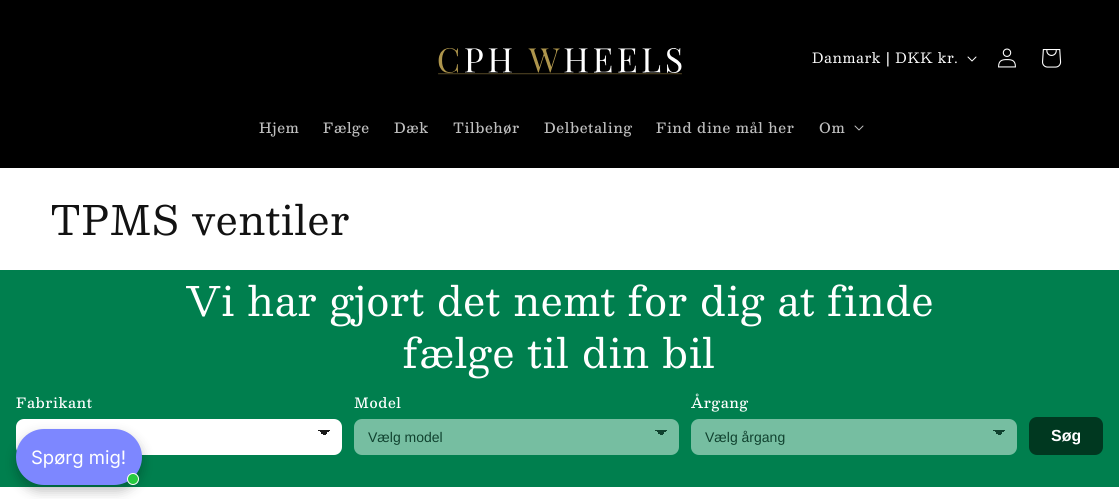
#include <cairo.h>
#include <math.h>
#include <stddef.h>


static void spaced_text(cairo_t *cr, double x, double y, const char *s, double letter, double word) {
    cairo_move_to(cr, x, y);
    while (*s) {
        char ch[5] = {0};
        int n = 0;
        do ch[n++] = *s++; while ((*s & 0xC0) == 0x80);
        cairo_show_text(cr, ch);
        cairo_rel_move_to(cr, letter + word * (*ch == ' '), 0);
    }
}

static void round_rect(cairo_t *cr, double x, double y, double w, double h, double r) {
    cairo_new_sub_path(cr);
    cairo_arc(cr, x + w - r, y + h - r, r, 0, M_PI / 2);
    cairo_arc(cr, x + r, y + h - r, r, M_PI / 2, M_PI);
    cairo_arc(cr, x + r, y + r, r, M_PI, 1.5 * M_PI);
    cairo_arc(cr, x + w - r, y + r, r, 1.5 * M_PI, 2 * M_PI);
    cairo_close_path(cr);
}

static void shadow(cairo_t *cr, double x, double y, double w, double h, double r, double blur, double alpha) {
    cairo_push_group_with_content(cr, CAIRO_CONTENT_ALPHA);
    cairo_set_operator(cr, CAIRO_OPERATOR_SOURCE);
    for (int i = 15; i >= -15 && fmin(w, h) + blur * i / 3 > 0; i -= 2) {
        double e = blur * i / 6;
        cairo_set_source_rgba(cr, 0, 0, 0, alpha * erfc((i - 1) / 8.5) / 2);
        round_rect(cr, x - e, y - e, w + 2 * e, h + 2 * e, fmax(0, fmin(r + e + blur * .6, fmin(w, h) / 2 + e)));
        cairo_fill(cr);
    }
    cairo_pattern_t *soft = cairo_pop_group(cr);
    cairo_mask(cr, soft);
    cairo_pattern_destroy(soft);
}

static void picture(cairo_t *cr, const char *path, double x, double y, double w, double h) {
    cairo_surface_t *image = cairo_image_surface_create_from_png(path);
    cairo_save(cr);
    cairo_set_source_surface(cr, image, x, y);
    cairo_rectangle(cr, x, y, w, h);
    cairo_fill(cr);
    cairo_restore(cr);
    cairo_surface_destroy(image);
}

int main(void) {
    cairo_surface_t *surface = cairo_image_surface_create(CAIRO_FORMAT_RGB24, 1119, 499);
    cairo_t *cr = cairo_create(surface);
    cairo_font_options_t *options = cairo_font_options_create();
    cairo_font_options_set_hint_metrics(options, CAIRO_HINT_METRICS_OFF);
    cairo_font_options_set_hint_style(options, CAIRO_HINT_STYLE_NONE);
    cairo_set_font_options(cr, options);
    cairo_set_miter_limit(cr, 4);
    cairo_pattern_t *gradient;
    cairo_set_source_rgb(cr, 0, 0, 0);
    cairo_paint(cr);
    picture(cr, "img1.png", 438, 48, 244, 27);
    cairo_select_font_face(cr, "Besley", CAIRO_FONT_SLANT_NORMAL, CAIRO_FONT_WEIGHT_NORMAL);
    cairo_set_font_size(cr, 14);
    cairo_set_source_rgb(cr, 1, 1, 1);
    spaced_text(cr, 812, 63, "Danmark | DKK kr.", 0.6, 0);
    picture(cr, "img2.png", 967, 56, 10, 6);
    picture(cr, "img3.png", 998, 48, 18, 20);
    picture(cr, "img4.png", 1042, 49, 20, 19);
    cairo_select_font_face(cr, "Besley Medium", CAIRO_FONT_SLANT_NORMAL, CAIRO_FONT_WEIGHT_NORMAL);
    cairo_set_source_rgb(cr, 0.749, 0.749, 0.749);
    spaced_text(cr, 259, 133, "Hjem", 0.6, 0);
    spaced_text(cr, 323, 133, "Fælge", 0.6, 0);
    spaced_text(cr, 394, 133, "Dæk", 0.6, 0);
    spaced_text(cr, 453, 133, "Tilbehør", 0.6, 0);
    spaced_text(cr, 544, 133, "Delbetaling", 0.6, 0);
    spaced_text(cr, 656, 133, "Find dine mål her", 0.6, 0);
    spaced_text(cr, 819, 133, "Om", 0.6, 0);
    picture(cr, "img5.png", 854, 125, 10, 6);
    cairo_set_source_rgb(cr, 1, 1, 1);
    cairo_rectangle(cr, 0, 168, 1119, 102);
    cairo_fill(cr);
    cairo_select_font_face(cr, "Besley", CAIRO_FONT_SLANT_NORMAL, CAIRO_FONT_WEIGHT_NORMAL);
    cairo_set_font_size(cr, 40);
    cairo_set_source_rgb(cr, 0.071, 0.071, 0.071);
    spaced_text(cr, 50, 235, "TPMS ventiler", 0.6, 0);
    cairo_set_source_rgb(cr, 0, 0.498, 0.306);
    cairo_rectangle(cr, 0, 270, 1119, 217);
    cairo_fill(cr);
    cairo_set_source_rgb(cr, 1, 1, 1);
    spaced_text(cr, 186, 316, "Vi har gjort det nemt for dig at finde", 0.6, 0);
    spaced_text(cr, 403, 368, "fælge til din bil", 0.6, 0);
    cairo_select_font_face(cr, "Besley Medium", CAIRO_FONT_SLANT_NORMAL, CAIRO_FONT_WEIGHT_NORMAL);
    cairo_set_font_size(cr, 14);
    spaced_text(cr, 16, 408, "Fabrikant", 0.6, 0);
    round_rect(cr, 16, 419, 326, 36, 8);
    cairo_fill(cr);
    gradient = cairo_pattern_create_linear(324, 430, 330, 436);
    cairo_pattern_add_color_stop_rgba(gradient, 0.5, 0.102, 0.102, 0.102, 1);
    cairo_pattern_add_color_stop_rgba(gradient, 0.5, 1, 1, 1, 1);
    cairo_set_source(cr, gradient);
    cairo_pattern_destroy(gradient);
    cairo_rectangle(cr, 324, 430, 6, 5);
    cairo_fill(cr);
    gradient = cairo_pattern_create_linear(318, 436, 324, 430);
    cairo_pattern_add_color_stop_rgba(gradient, 0.5, 1, 1, 1, 1);
    cairo_pattern_add_color_stop_rgba(gradient, 0.5, 0.102, 0.102, 0.102, 1);
    cairo_set_source(cr, gradient);
    cairo_pattern_destroy(gradient);
    cairo_rectangle(cr, 318, 430, 6, 5);
    cairo_fill(cr);
    cairo_set_source_rgb(cr, 1, 1, 1);
    spaced_text(cr, 354, 408, "Model", 0.6, 0);
    cairo_set_source_rgb(cr, 0.463, 0.745, 0.631);
    round_rect(cr, 354, 419, 325, 36, 8);
    cairo_fill(cr);
    gradient = cairo_pattern_create_linear(661, 430, 667, 436);
    cairo_pattern_add_color_stop_rgba(gradient, 0.5, 0.063, 0.259, 0.184, 1);
    cairo_pattern_add_color_stop_rgba(gradient, 0.5, 0.463, 0.745, 0.631, 1);
    cairo_set_source(cr, gradient);
    cairo_pattern_destroy(gradient);
    cairo_rectangle(cr, 661, 430, 6, 5);
    cairo_fill(cr);
    gradient = cairo_pattern_create_linear(655, 436, 661, 430);
    cairo_pattern_add_color_stop_rgba(gradient, 0.5, 0.463, 0.745, 0.631, 1);
    cairo_pattern_add_color_stop_rgba(gradient, 0.5, 0.063, 0.259, 0.184, 1);
    cairo_set_source(cr, gradient);
    cairo_pattern_destroy(gradient);
    cairo_rectangle(cr, 655, 430, 6, 5);
    cairo_fill(cr);
    cairo_select_font_face(cr, "Liberation Sans", CAIRO_FONT_SLANT_NORMAL, CAIRO_FONT_WEIGHT_NORMAL);
    cairo_set_source_rgb(cr, 0.063, 0.259, 0.184);
    cairo_move_to(cr, 368, 442);
    cairo_show_text(cr, "Vælg model");
    cairo_select_font_face(cr, "Besley Medium", CAIRO_FONT_SLANT_NORMAL, CAIRO_FONT_WEIGHT_NORMAL);
    cairo_set_source_rgb(cr, 1, 1, 1);
    spaced_text(cr, 691, 408, "Årgang", 0.6, 0);
    cairo_set_source_rgb(cr, 0.463, 0.745, 0.631);
    round_rect(cr, 691, 419, 326, 36, 8);
    cairo_fill(cr);
    gradient = cairo_pattern_create_linear(999, 430, 1005, 436);
    cairo_pattern_add_color_stop_rgba(gradient, 0.5, 0.063, 0.259, 0.184, 1);
    cairo_pattern_add_color_stop_rgba(gradient, 0.5, 0.463, 0.745, 0.631, 1);
    cairo_set_source(cr, gradient);
    cairo_pattern_destroy(gradient);
    cairo_rectangle(cr, 999, 430, 6, 5);
    cairo_fill(cr);
    gradient = cairo_pattern_create_linear(993, 436, 999, 430);
    cairo_pattern_add_color_stop_rgba(gradient, 0.5, 0.463, 0.745, 0.631, 1);
    cairo_pattern_add_color_stop_rgba(gradient, 0.5, 0.063, 0.259, 0.184, 1);
    cairo_set_source(cr, gradient);
    cairo_pattern_destroy(gradient);
    cairo_rectangle(cr, 993, 430, 6, 5);
    cairo_fill(cr);
    cairo_select_font_face(cr, "Liberation Sans", CAIRO_FONT_SLANT_NORMAL, CAIRO_FONT_WEIGHT_NORMAL);
    cairo_set_source_rgb(cr, 0.063, 0.259, 0.184);
    cairo_move_to(cr, 705, 442);
    cairo_show_text(cr, "Vælg årgang");
    cairo_set_source_rgb(cr, 0, 0.22, 0.125);
    round_rect(cr, 1029, 417, 74, 38, 8);
    cairo_fill(cr);
    cairo_select_font_face(cr, "Liberation Sans", CAIRO_FONT_SLANT_NORMAL, CAIRO_FONT_WEIGHT_BOLD);
    cairo_set_font_size(cr, 16);
    cairo_set_source_rgb(cr, 1, 1, 1);
    cairo_move_to(cr, 1051, 441);
    cairo_show_text(cr, "Søg");
    cairo_rectangle(cr, 0, 487, 1119, 12);
    cairo_fill(cr);
    cairo_set_source_rgb(cr, 0, 0, 0);
    shadow(cr, 16, 435, 126, 56, 28, 6, 0.25);
    cairo_set_source_rgb(cr, 0.49, 0.529, 1);
    round_rect(cr, 16, 429, 126, 56, 28);
    cairo_fill(cr);
    cairo_select_font_face(cr, "Inter", CAIRO_FONT_SLANT_NORMAL, CAIRO_FONT_WEIGHT_NORMAL);
    cairo_set_font_size(cr, 18.5);
    cairo_set_source_rgb(cr, 1, 1, 1);
    cairo_move_to(cr, 31, 464);
    cairo_show_text(cr, "Spørg mig!");
    cairo_set_source_rgb(cr, 0.153, 0.792, 0.251);
    cairo_new_path(cr);
    cairo_arc(cr, 133, 479, 5.5, 0, 2 * M_PI);
    cairo_fill_preserve(cr);
    cairo_set_source_rgb(cr, 1, 1, 1);
    cairo_set_line_width(cr, 1);
    cairo_stroke(cr);
    cairo_surface_write_to_png(surface, "page.png");
    cairo_font_options_destroy(options);
    cairo_destroy(cr);
    cairo_surface_destroy(surface);
    return 0;
}
